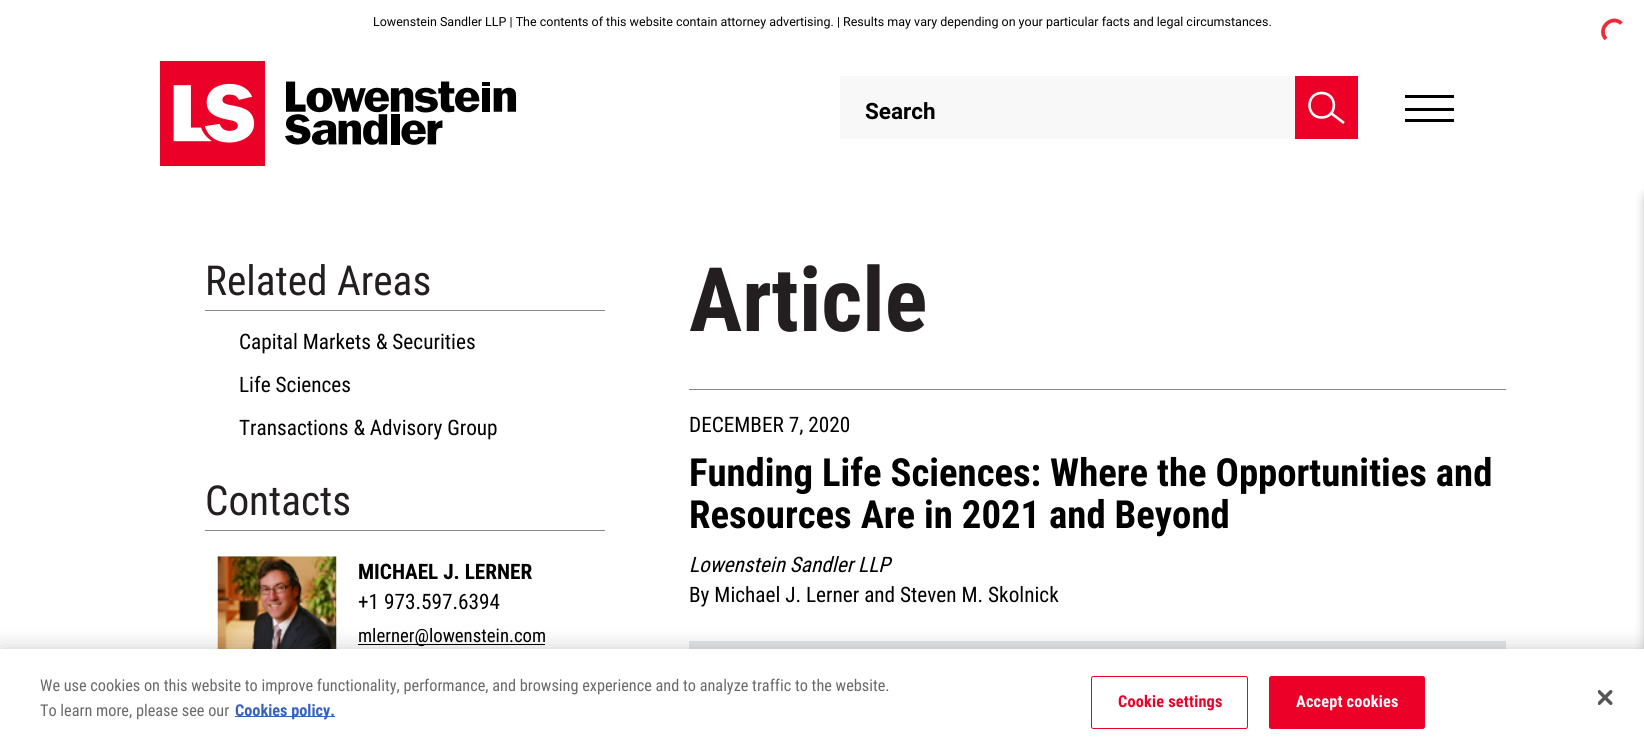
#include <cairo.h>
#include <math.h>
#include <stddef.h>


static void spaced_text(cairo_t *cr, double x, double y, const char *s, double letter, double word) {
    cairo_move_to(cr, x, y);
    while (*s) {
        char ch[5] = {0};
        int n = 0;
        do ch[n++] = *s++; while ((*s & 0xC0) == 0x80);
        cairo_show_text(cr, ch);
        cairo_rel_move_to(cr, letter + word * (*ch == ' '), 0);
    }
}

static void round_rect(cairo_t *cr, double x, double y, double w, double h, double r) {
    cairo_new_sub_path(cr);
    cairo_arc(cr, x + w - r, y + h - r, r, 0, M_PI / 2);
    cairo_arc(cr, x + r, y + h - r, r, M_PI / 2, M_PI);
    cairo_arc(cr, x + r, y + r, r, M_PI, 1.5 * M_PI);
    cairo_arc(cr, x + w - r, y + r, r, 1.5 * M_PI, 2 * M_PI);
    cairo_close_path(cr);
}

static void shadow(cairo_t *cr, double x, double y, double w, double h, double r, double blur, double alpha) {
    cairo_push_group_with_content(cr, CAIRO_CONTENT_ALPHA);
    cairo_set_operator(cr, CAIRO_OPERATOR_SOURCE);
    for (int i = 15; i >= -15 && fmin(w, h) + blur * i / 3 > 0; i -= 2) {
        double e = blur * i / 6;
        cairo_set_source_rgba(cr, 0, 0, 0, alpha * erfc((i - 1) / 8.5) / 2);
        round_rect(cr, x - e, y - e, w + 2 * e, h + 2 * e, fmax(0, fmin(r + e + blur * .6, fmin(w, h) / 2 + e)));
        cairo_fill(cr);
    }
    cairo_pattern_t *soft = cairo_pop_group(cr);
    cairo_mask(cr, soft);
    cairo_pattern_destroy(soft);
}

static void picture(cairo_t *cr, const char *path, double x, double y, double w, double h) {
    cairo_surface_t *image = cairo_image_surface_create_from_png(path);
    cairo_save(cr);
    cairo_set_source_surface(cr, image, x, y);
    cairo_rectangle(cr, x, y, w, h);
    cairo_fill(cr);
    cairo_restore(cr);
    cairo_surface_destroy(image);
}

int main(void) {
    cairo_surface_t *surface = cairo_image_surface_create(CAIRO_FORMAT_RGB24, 1644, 751);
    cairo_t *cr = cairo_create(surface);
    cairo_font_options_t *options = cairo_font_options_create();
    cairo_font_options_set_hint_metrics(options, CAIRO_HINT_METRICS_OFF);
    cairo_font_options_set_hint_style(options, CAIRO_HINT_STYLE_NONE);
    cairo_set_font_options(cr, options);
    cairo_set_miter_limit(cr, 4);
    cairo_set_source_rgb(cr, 1, 1, 1);
    cairo_paint(cr);
    cairo_select_font_face(cr, "Roboto", CAIRO_FONT_SLANT_NORMAL, CAIRO_FONT_WEIGHT_NORMAL);
    cairo_set_font_size(cr, 12.5);
    cairo_set_source_rgb(cr, 0, 0, 0);
    cairo_move_to(cr, 373, 26);
    cairo_show_text(cr, "Lowenstein Sandler LLP | The contents of this website contain attorney advertising. | Results may vary depending on your particular facts and legal circumstances.");
    picture(cr, "img1.png", 160, 61, 357, 105);
    cairo_set_source_rgb(cr, 0.969, 0.969, 0.969);
    cairo_rectangle(cr, 840, 76, 455, 63);
    cairo_fill(cr);
    cairo_select_font_face(cr, "Roboto", CAIRO_FONT_SLANT_NORMAL, CAIRO_FONT_WEIGHT_BOLD);
    cairo_set_font_size(cr, 22.5);
    cairo_set_source_rgb(cr, 0, 0, 0);
    cairo_move_to(cr, 865, 119);
    cairo_show_text(cr, "Search");
    cairo_set_source_rgb(cr, 0.922, 0, 0.157);
    cairo_rectangle(cr, 1295, 76, 63, 63);
    cairo_fill(cr);
    cairo_new_path(cr);
    cairo_move_to(cr, 1321.5, 117.5);
    cairo_curve_to(cr, 1338, 117.5, 1338, 93, 1321.5, 93);
    cairo_curve_to(cr, 1305.5, 93, 1305.5, 117.5, 1321.5, 117.5);
    cairo_close_path(cr);
    cairo_move_to(cr, 1331.5, 113.5);
    cairo_line_to(cr, 1344, 123);
    cairo_set_source_rgb(cr, 1, 1, 1);
    cairo_set_line_width(cr, 2.6);
    cairo_stroke(cr);
    cairo_set_source_rgb(cr, 0, 0, 0);
    cairo_rectangle(cr, 1405, 95, 49, 3);
    cairo_fill(cr);
    cairo_rectangle(cr, 1405, 119, 49, 3);
    cairo_fill(cr);
    cairo_rectangle(cr, 1405, 108, 49, 3);
    cairo_fill(cr);
    cairo_set_source_rgb(cr, 0.533, 0.533, 0.533);
    cairo_rectangle(cr, 205, 310, 400, 1);
    cairo_fill(cr);
    cairo_select_font_face(cr, "Roboto Condensed", CAIRO_FONT_SLANT_NORMAL, CAIRO_FONT_WEIGHT_NORMAL);
    cairo_set_font_size(cr, 41.25);
    cairo_set_source_rgb(cr, 0.137, 0.122, 0.125);
    cairo_move_to(cr, 205, 295);
    cairo_show_text(cr, "Related Areas");
    cairo_set_font_size(cr, 21.25);
    cairo_set_source_rgb(cr, 0, 0, 0);
    cairo_move_to(cr, 239, 349);
    cairo_show_text(cr, "Capital Markets & Securities");
    cairo_move_to(cr, 239, 392);
    cairo_show_text(cr, "Life Sciences");
    cairo_move_to(cr, 239, 435);
    cairo_show_text(cr, "Transactions & Advisory Group");
    cairo_set_source_rgb(cr, 0.533, 0.533, 0.533);
    cairo_rectangle(cr, 205, 530, 400, 1);
    cairo_fill(cr);
    cairo_set_font_size(cr, 41.25);
    cairo_set_source_rgb(cr, 0.137, 0.122, 0.125);
    cairo_move_to(cr, 205, 515);
    cairo_show_text(cr, "Contacts");
    picture(cr, "img2.png", 217, 556, 120, 93);
    cairo_select_font_face(cr, "Roboto Condensed", CAIRO_FONT_SLANT_NORMAL, CAIRO_FONT_WEIGHT_BOLD);
    cairo_set_font_size(cr, 21.25);
    cairo_set_source_rgb(cr, 0, 0, 0);
    cairo_move_to(cr, 358, 579);
    cairo_show_text(cr, "MICHAEL J. LERNER");
    cairo_select_font_face(cr, "Roboto Condensed", CAIRO_FONT_SLANT_NORMAL, CAIRO_FONT_WEIGHT_NORMAL);
    cairo_move_to(cr, 358, 609);
    cairo_show_text(cr, "+1 973.597.6394");
    cairo_rectangle(cr, 358, 644, 187, 1);
    cairo_fill(cr);
    cairo_set_font_size(cr, 18.75);
    cairo_move_to(cr, 358, 642);
    cairo_show_text(cr, "mlerner@lowenstein.com");
    cairo_set_source_rgb(cr, 0.533, 0.533, 0.533);
    cairo_rectangle(cr, 689, 389, 817, 1);
    cairo_fill(cr);
    cairo_select_font_face(cr, "Roboto Condensed", CAIRO_FONT_SLANT_NORMAL, CAIRO_FONT_WEIGHT_BOLD);
    cairo_set_font_size(cr, 89);
    cairo_set_source_rgb(cr, 0.137, 0.122, 0.125);
    cairo_move_to(cr, 689, 331);
    cairo_show_text(cr, "Article");
    cairo_select_font_face(cr, "Roboto Condensed", CAIRO_FONT_SLANT_NORMAL, CAIRO_FONT_WEIGHT_NORMAL);
    cairo_set_font_size(cr, 21.25);
    cairo_set_source_rgb(cr, 0, 0, 0);
    cairo_move_to(cr, 689, 432);
    cairo_show_text(cr, "DECEMBER 7, 2020");
    cairo_select_font_face(cr, "Roboto Condensed", CAIRO_FONT_SLANT_NORMAL, CAIRO_FONT_WEIGHT_BOLD);
    cairo_set_font_size(cr, 38.75);
    cairo_move_to(cr, 689, 486);
    cairo_show_text(cr, "Funding Life Sciences: Where the Opportunities and");
    cairo_move_to(cr, 689, 528);
    cairo_show_text(cr, "Resources Are in 2021 and Beyond");
    cairo_select_font_face(cr, "Roboto Condensed", CAIRO_FONT_SLANT_ITALIC, CAIRO_FONT_WEIGHT_NORMAL);
    cairo_set_font_size(cr, 21.25);
    cairo_move_to(cr, 689, 572);
    cairo_show_text(cr, "Lowenstein Sandler LLP");
    cairo_select_font_face(cr, "Roboto Condensed", CAIRO_FONT_SLANT_NORMAL, CAIRO_FONT_WEIGHT_NORMAL);
    cairo_move_to(cr, 689, 602);
    cairo_show_text(cr, "By Michael J. Lerner and Steven M. Skolnick");
    cairo_set_source_rgb(cr, 0.89, 0.898, 0.91);
    cairo_rectangle(cr, 689, 641, 817, 8);
    cairo_fill(cr);
    cairo_set_source_rgb(cr, 0, 0, 0);
    shadow(cr, 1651, 199, 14, 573, 0, 7, 0.75);
    cairo_new_path(cr);
    cairo_move_to(cr, 1606, 39);
    cairo_curve_to(cr, 1596.5, 29, 1611.5, 14, 1621.5, 23.5);
    cairo_set_source_rgb(cr, 0.925, 0.173, 0.227);
    cairo_set_line_width(cr, 3.8);
    cairo_stroke(cr);
    cairo_set_source_rgb(cr, 0, 0, 0);
    shadow(cr, 0, 649, 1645, 102, 0, 11, 0.2);
    cairo_set_source_rgb(cr, 1, 1, 1);
    cairo_rectangle(cr, 0, 649, 1644, 102);
    cairo_fill(cr);
    cairo_set_font_size(cr, 16.25);
    cairo_set_source_rgb(cr, 0.412, 0.412, 0.412);
    cairo_move_to(cr, 40, 691);
    cairo_show_text(cr, "We use cookies on this website to improve functionality, performance, and browsing experience and to analyze traffic to the website.");
    cairo_move_to(cr, 40, 716);
    cairo_show_text(cr, "To learn more, please see our");
    cairo_set_source_rgb(cr, 0.22, 0.376, 0.745);
    cairo_rectangle(cr, 235, 716, 100, 1);
    cairo_fill(cr);
    cairo_select_font_face(cr, "Roboto Condensed", CAIRO_FONT_SLANT_NORMAL, CAIRO_FONT_WEIGHT_BOLD);
    cairo_move_to(cr, 235, 716);
    cairo_show_text(cr, "Cookies policy.");
    round_rect(cr, 1091.5, 676.5, 156, 52, 2);
    cairo_set_source_rgb(cr, 0.922, 0, 0.157);
    cairo_set_line_width(cr, 1);
    cairo_stroke(cr);
    spaced_text(cr, 1118, 707, "Cookie settings", 0.2, 0);
    round_rect(cr, 1269.5, 676.5, 155, 52, 2);
    cairo_fill_preserve(cr);
    cairo_stroke(cr);
    cairo_set_source_rgb(cr, 1, 1, 1);
    spaced_text(cr, 1296, 707, "Accept cookies", 0.2, 0);
    picture(cr, "img3.png", 1598, 690, 15, 15);
    cairo_surface_write_to_png(surface, "page.png");
    cairo_font_options_destroy(options);
    cairo_destroy(cr);
    cairo_surface_destroy(surface);
    return 0;
}
